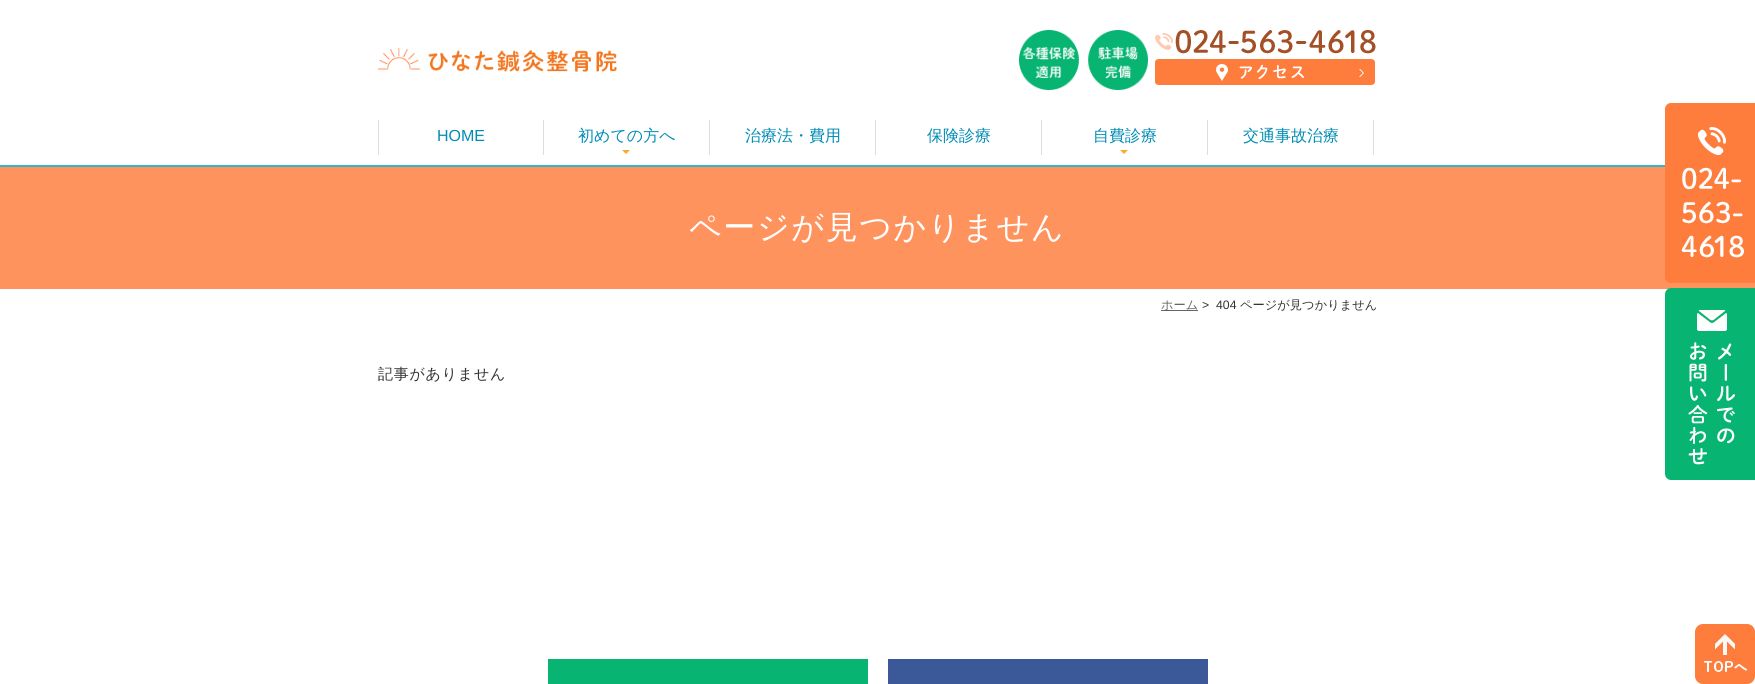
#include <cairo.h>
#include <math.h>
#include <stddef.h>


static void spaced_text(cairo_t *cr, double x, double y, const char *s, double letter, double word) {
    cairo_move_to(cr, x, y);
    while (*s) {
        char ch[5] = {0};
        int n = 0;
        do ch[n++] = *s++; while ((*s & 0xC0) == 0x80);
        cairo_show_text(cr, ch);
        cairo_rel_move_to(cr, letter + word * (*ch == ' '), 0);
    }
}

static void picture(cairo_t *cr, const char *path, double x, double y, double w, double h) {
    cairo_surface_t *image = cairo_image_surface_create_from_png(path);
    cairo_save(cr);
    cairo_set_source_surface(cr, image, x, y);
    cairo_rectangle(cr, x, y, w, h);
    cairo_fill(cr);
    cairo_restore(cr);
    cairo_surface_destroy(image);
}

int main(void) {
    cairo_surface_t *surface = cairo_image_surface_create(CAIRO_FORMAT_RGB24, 1755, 684);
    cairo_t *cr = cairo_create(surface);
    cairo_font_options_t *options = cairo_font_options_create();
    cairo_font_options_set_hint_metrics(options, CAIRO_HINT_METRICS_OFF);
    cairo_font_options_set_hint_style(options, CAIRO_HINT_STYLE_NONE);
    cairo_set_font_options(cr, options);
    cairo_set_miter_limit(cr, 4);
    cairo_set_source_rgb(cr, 1, 1, 1);
    cairo_paint(cr);
    picture(cr, "img1.png", 378, 48, 239, 24);
    picture(cr, "img2.png", 1019, 30, 129, 60);
    picture(cr, "img3.png", 1155, 30, 221, 24);
    picture(cr, "img4.png", 1155, 59, 220, 26);
    cairo_set_source_rgb(cr, 0.204, 0.71, 0.808);
    cairo_rectangle(cr, 0, 165, 1665, 2);
    cairo_fill(cr);
    cairo_set_source_rgb(cr, 0.867, 0.867, 0.867);
    cairo_rectangle(cr, 378, 120, 1, 35);
    cairo_fill(cr);
    cairo_select_font_face(cr, "Liberation Sans", CAIRO_FONT_SLANT_NORMAL, CAIRO_FONT_WEIGHT_NORMAL);
    cairo_set_font_size(cr, 16);
    cairo_set_source_rgb(cr, 0, 0.549, 0.71);
    cairo_move_to(cr, 437, 141);
    cairo_show_text(cr, "HOME");
    cairo_set_source_rgb(cr, 0.867, 0.867, 0.867);
    cairo_rectangle(cr, 543, 120, 1, 35);
    cairo_fill(cr);
    cairo_select_font_face(cr, "WenQuanYi Zen Hei Medium", CAIRO_FONT_SLANT_NORMAL, CAIRO_FONT_WEIGHT_NORMAL);
    cairo_set_source_rgb(cr, 0, 0.549, 0.71);
    cairo_move_to(cr, 578, 141);
    cairo_show_text(cr, "初めての方へ");
    cairo_set_source_rgb(cr, 0.867, 0.867, 0.867);
    cairo_rectangle(cr, 709, 120, 1, 35);
    cairo_fill(cr);
    cairo_set_source_rgb(cr, 0.98, 0.667, 0.188);
    cairo_new_path(cr);
    cairo_move_to(cr, 622, 150);
    cairo_line_to(cr, 630, 150);
    cairo_line_to(cr, 626, 154);
    cairo_close_path(cr);
    cairo_fill(cr);
    cairo_set_source_rgb(cr, 0, 0.549, 0.71);
    cairo_move_to(cr, 745, 141);
    cairo_show_text(cr, "治療法・費用");
    cairo_set_source_rgb(cr, 0.867, 0.867, 0.867);
    cairo_rectangle(cr, 875, 120, 1, 35);
    cairo_fill(cr);
    cairo_set_source_rgb(cr, 0, 0.549, 0.71);
    cairo_move_to(cr, 927, 141);
    cairo_show_text(cr, "保険診療");
    cairo_set_source_rgb(cr, 0.867, 0.867, 0.867);
    cairo_rectangle(cr, 1041, 120, 1, 35);
    cairo_fill(cr);
    cairo_set_source_rgb(cr, 0, 0.549, 0.71);
    cairo_move_to(cr, 1093, 141);
    cairo_show_text(cr, "自費診療");
    cairo_set_source_rgb(cr, 0.867, 0.867, 0.867);
    cairo_rectangle(cr, 1207, 120, 1, 35);
    cairo_fill(cr);
    cairo_set_source_rgb(cr, 0.98, 0.667, 0.188);
    cairo_new_path(cr);
    cairo_move_to(cr, 1120, 150);
    cairo_line_to(cr, 1128, 150);
    cairo_line_to(cr, 1124, 154);
    cairo_close_path(cr);
    cairo_fill(cr);
    cairo_set_source_rgb(cr, 0, 0.549, 0.71);
    cairo_move_to(cr, 1243, 141);
    cairo_show_text(cr, "交通事故治療");
    cairo_set_source_rgb(cr, 0.867, 0.867, 0.867);
    cairo_rectangle(cr, 1373, 120, 1, 35);
    cairo_fill(cr);
    cairo_set_source_rgb(cr, 1, 0.576, 0.369);
    cairo_rectangle(cr, 0, 167, 1755, 122);
    cairo_fill(cr);
    cairo_set_font_size(cr, 32);
    cairo_set_source_rgb(cr, 1, 1, 1);
    spaced_text(cr, 689, 238, "ページが見つかりません", 1.6, 0);
    cairo_set_source_rgb(cr, 0.4, 0.4, 0.4);
    cairo_rectangle(cr, 1161, 310, 37, 1);
    cairo_fill(cr);
    cairo_set_font_size(cr, 12.25);
    cairo_move_to(cr, 1161, 309);
    cairo_show_text(cr, "ホーム");
    cairo_select_font_face(cr, "Liberation Sans", CAIRO_FONT_SLANT_NORMAL, CAIRO_FONT_WEIGHT_NORMAL);
    cairo_set_source_rgb(cr, 0.2, 0.2, 0.2);
    cairo_move_to(cr, 1202, 309);
    cairo_show_text(cr, ">");
    cairo_move_to(cr, 1216, 309);
    cairo_show_text(cr, "404");
    cairo_select_font_face(cr, "WenQuanYi Zen Hei Medium", CAIRO_FONT_SLANT_NORMAL, CAIRO_FONT_WEIGHT_NORMAL);
    cairo_move_to(cr, 1240, 309);
    cairo_show_text(cr, "ページが見つかりません");
    cairo_set_font_size(cr, 15);
    spaced_text(cr, 378, 379, "記事がありません", 0.75, 0);
    picture(cr, "img5.png", 1665, 103, 90, 180);
    picture(cr, "img6.png", 1665, 288, 90, 192);
    picture(cr, "img7.png", 1695, 624, 60, 60);
    cairo_set_source_rgb(cr, 0.031, 0.706, 0.443);
    cairo_rectangle(cr, 548, 659, 320, 25);
    cairo_fill(cr);
    cairo_set_source_rgb(cr, 0.231, 0.349, 0.596);
    cairo_rectangle(cr, 888, 659, 320, 25);
    cairo_fill(cr);
    cairo_surface_write_to_png(surface, "page.png");
    cairo_font_options_destroy(options);
    cairo_destroy(cr);
    cairo_surface_destroy(surface);
    return 0;
}
